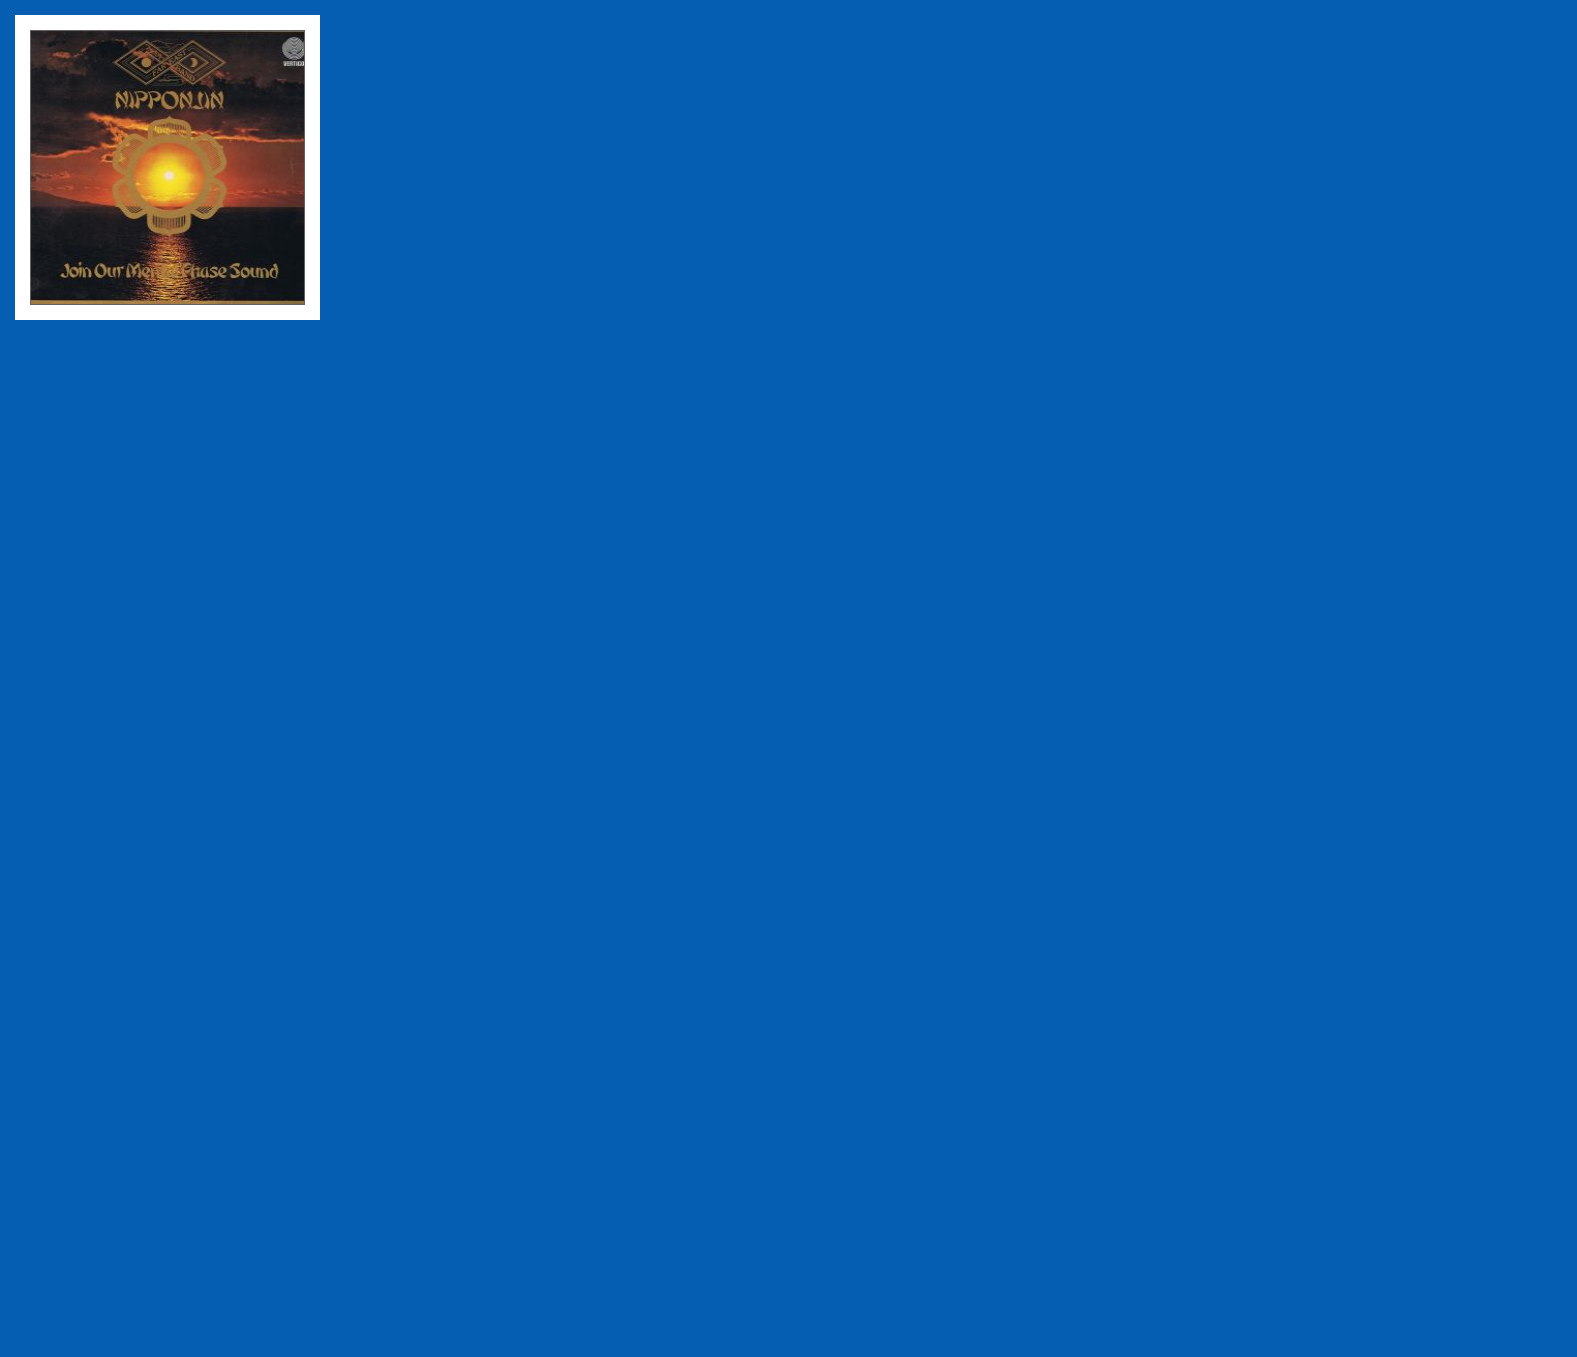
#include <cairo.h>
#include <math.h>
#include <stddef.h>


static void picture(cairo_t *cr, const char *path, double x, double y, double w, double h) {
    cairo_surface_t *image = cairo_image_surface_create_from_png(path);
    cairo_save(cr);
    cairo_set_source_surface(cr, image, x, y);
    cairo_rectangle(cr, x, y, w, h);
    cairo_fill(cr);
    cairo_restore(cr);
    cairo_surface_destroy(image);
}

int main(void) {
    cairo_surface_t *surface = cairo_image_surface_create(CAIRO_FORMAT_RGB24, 1577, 1357);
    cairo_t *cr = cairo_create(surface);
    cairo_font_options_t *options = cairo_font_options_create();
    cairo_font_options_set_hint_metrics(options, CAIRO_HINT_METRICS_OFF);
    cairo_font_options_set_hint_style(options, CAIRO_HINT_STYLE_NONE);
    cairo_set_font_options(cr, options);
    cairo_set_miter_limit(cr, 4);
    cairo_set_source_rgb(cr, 0.02, 0.369, 0.698);
    cairo_paint(cr);
    cairo_set_source_rgb(cr, 1, 1, 1);
    cairo_rectangle(cr, 15, 15, 305, 305);
    cairo_fill(cr);
    cairo_rectangle(cr, 30.5, 30.5, 274, 274);
    cairo_set_source_rgb(cr, 0.384, 0.376, 0.376);
    cairo_set_line_width(cr, 1);
    cairo_stroke(cr);
    picture(cr, "img1.png", 31, 31, 273, 273);
    cairo_surface_write_to_png(surface, "page.png");
    cairo_font_options_destroy(options);
    cairo_destroy(cr);
    cairo_surface_destroy(surface);
    return 0;
}
